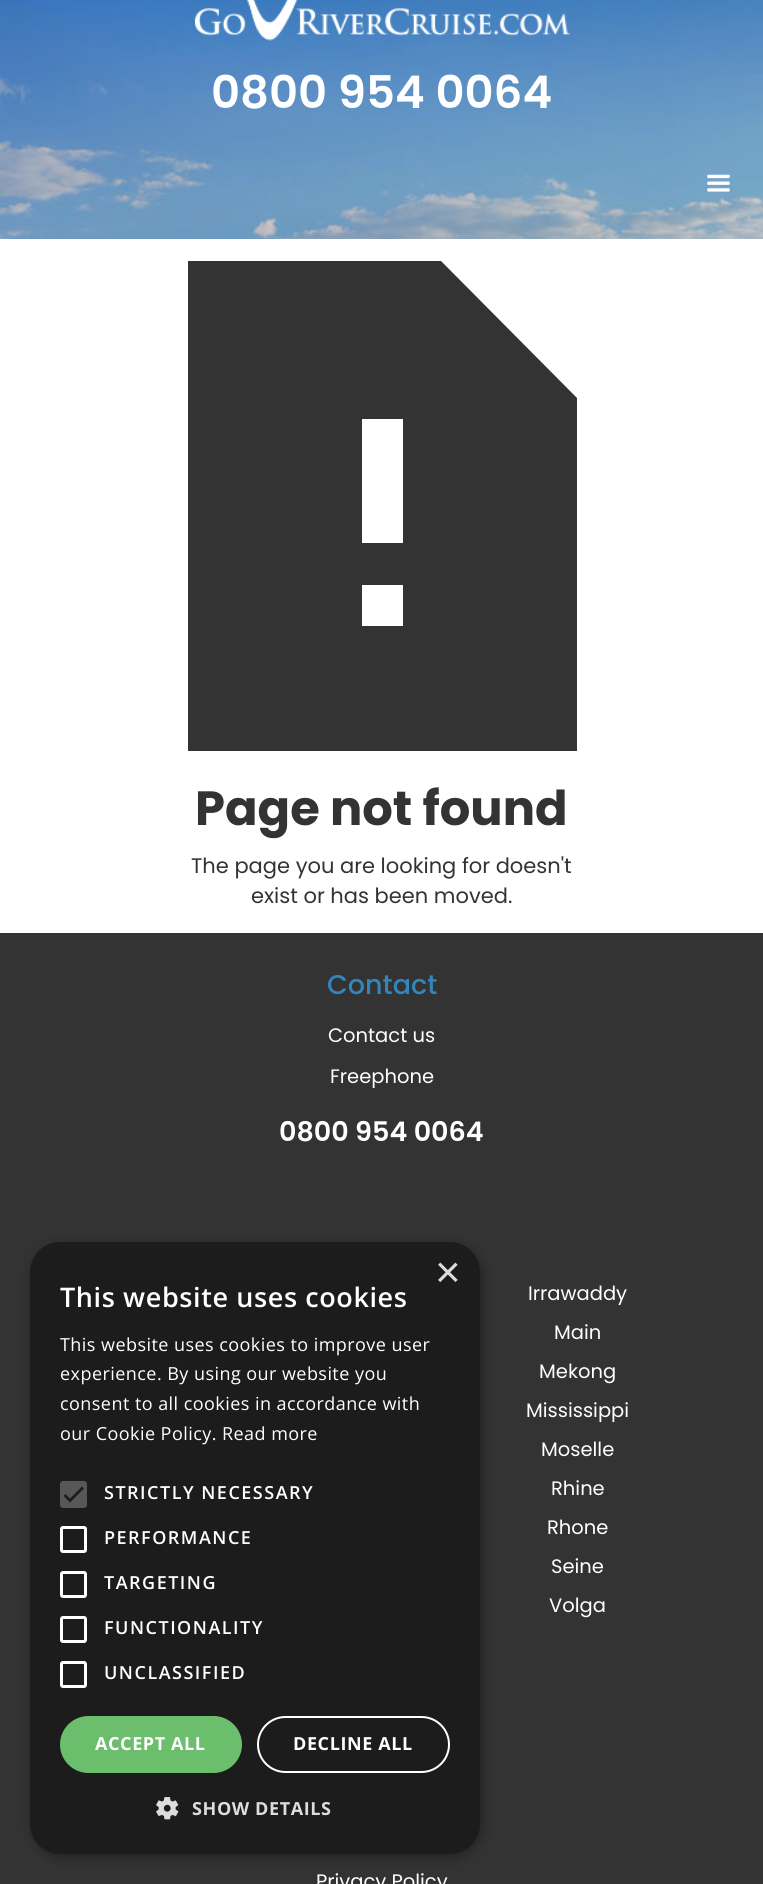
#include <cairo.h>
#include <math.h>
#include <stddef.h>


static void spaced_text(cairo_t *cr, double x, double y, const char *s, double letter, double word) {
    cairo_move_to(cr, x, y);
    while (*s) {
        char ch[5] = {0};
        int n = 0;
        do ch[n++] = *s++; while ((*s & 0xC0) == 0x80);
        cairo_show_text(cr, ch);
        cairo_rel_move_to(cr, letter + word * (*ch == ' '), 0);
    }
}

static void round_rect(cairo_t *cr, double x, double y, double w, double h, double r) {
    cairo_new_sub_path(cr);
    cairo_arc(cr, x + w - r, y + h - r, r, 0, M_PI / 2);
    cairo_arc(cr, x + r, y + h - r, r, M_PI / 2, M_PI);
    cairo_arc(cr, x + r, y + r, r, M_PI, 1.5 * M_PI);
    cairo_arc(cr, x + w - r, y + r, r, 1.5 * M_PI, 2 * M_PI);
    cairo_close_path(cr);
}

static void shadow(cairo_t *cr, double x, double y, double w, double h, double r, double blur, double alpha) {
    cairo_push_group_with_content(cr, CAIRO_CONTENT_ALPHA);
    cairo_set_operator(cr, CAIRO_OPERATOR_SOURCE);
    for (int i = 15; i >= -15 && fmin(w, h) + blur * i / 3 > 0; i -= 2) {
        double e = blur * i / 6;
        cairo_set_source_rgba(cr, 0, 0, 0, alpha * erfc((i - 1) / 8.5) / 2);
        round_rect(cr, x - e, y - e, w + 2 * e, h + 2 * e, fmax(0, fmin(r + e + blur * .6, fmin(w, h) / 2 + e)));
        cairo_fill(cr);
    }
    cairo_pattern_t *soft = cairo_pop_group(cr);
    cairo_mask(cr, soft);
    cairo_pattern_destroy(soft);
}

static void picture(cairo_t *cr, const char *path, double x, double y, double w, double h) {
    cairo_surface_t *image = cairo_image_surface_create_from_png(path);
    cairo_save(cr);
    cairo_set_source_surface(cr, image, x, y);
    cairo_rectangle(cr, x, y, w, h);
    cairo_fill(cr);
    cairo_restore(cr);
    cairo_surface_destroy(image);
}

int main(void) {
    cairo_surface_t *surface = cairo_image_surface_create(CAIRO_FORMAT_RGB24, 763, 1884);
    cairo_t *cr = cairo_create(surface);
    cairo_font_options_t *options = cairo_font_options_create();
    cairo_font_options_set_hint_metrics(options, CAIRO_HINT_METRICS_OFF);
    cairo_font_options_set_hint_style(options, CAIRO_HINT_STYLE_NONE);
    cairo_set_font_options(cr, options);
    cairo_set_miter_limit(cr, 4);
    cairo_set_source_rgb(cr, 1, 1, 1);
    cairo_paint(cr);
    picture(cr, "img1.png", 0, 0, 763, 239);
    picture(cr, "img2.png", 195, 0, 375, 41);
    cairo_select_font_face(cr, "Poppins SemiBold", CAIRO_FONT_SLANT_NORMAL, CAIRO_FONT_WEIGHT_NORMAL);
    cairo_set_font_size(cr, 45);
    cairo_set_source_rgb(cr, 1, 1, 1);
    cairo_move_to(cr, 211, 108);
    cairo_show_text(cr, "0800 954 0064");
    picture(cr, "img3.png", 707, 174, 23, 18);
    cairo_set_source_rgb(cr, 0.2, 0.2, 0.2);
    cairo_set_fill_rule(cr, CAIRO_FILL_RULE_EVEN_ODD);
    cairo_new_path(cr);
    cairo_move_to(cr, 188, 261);
    cairo_line_to(cr, 441, 261);
    cairo_line_to(cr, 577, 398);
    cairo_line_to(cr, 577, 751);
    cairo_line_to(cr, 188, 751);
    cairo_close_path(cr);
    cairo_move_to(cr, 362, 419);
    cairo_line_to(cr, 403, 419);
    cairo_line_to(cr, 403, 543);
    cairo_line_to(cr, 362, 543);
    cairo_close_path(cr);
    cairo_move_to(cr, 362, 585);
    cairo_line_to(cr, 403, 585);
    cairo_line_to(cr, 403, 626);
    cairo_line_to(cr, 362, 626);
    cairo_close_path(cr);
    cairo_fill(cr);
    cairo_select_font_face(cr, "Poppins", CAIRO_FONT_SLANT_NORMAL, CAIRO_FONT_WEIGHT_BOLD);
    cairo_set_font_size(cr, 48);
    cairo_move_to(cr, 195, 825);
    cairo_show_text(cr, "Page not found");
    cairo_select_font_face(cr, "Poppins", CAIRO_FONT_SLANT_NORMAL, CAIRO_FONT_WEIGHT_NORMAL);
    cairo_set_font_size(cr, 21);
    cairo_move_to(cr, 191, 873);
    cairo_show_text(cr, "The page you are looking for doesn't");
    cairo_move_to(cr, 251, 903);
    cairo_show_text(cr, "exist or has been moved.");
    cairo_rectangle(cr, 0, 933, 763, 951);
    cairo_fill(cr);
    cairo_select_font_face(cr, "Poppins Medium", CAIRO_FONT_SLANT_NORMAL, CAIRO_FONT_WEIGHT_NORMAL);
    cairo_set_font_size(cr, 27);
    cairo_set_source_rgb(cr, 0.196, 0.525, 0.745);
    cairo_move_to(cr, 327, 994);
    cairo_show_text(cr, "Contact");
    cairo_select_font_face(cr, "Poppins", CAIRO_FONT_SLANT_NORMAL, CAIRO_FONT_WEIGHT_NORMAL);
    cairo_set_font_size(cr, 19.5);
    cairo_set_source_rgb(cr, 1, 1, 1);
    cairo_move_to(cr, 328, 1042);
    cairo_show_text(cr, "Contact us");
    cairo_move_to(cr, 330, 1083);
    cairo_show_text(cr, "Freephone");
    cairo_select_font_face(cr, "Poppins SemiBold", CAIRO_FONT_SLANT_NORMAL, CAIRO_FONT_WEIGHT_NORMAL);
    cairo_set_font_size(cr, 27);
    cairo_move_to(cr, 279, 1141);
    cairo_show_text(cr, "0800 954 0064");
    cairo_select_font_face(cr, "Poppins", CAIRO_FONT_SLANT_NORMAL, CAIRO_FONT_WEIGHT_NORMAL);
    cairo_set_font_size(cr, 19.5);
    cairo_move_to(cr, 528, 1300);
    cairo_show_text(cr, "Irrawaddy");
    cairo_move_to(cr, 554, 1339);
    cairo_show_text(cr, "Main");
    cairo_move_to(cr, 539, 1378);
    cairo_show_text(cr, "Mekong");
    cairo_move_to(cr, 526, 1417);
    cairo_show_text(cr, "Mississippi");
    cairo_move_to(cr, 541, 1456);
    cairo_show_text(cr, "Moselle");
    cairo_move_to(cr, 551, 1495);
    cairo_show_text(cr, "Rhine");
    cairo_move_to(cr, 547, 1534);
    cairo_show_text(cr, "Rhone");
    cairo_move_to(cr, 551, 1573);
    cairo_show_text(cr, "Seine");
    cairo_move_to(cr, 549, 1612);
    cairo_show_text(cr, "Volga");
    cairo_move_to(cr, 316, 1888);
    cairo_show_text(cr, "Privacy Policy");
    cairo_set_source_rgb(cr, 0, 0, 0);
    shadow(cr, 32, 1245, 450, 612, 30, 6, 0.35);
    cairo_set_source_rgb(cr, 0.11, 0.11, 0.11);
    round_rect(cr, 30, 1242, 450, 612, 30);
    cairo_fill(cr);
    cairo_select_font_face(cr, "Liberation Sans", CAIRO_FONT_SLANT_NORMAL, CAIRO_FONT_WEIGHT_NORMAL);
    cairo_set_font_size(cr, 44);
    cairo_set_source_rgb(cr, 0.867, 0.867, 0.867);
    cairo_move_to(cr, 435, 1287);
    cairo_show_text(cr, "×");
    cairo_select_font_face(cr, "Open Sans SemiBold", CAIRO_FONT_SLANT_NORMAL, CAIRO_FONT_WEIGHT_NORMAL);
    cairo_set_font_size(cr, 27);
    cairo_set_source_rgb(cr, 1, 1, 1);
    spaced_text(cr, 60, 1307, "This website uses cookies", 0.6, 0);
    cairo_select_font_face(cr, "Open Sans", CAIRO_FONT_SLANT_NORMAL, CAIRO_FONT_WEIGHT_NORMAL);
    cairo_set_font_size(cr, 18);
    spaced_text(cr, 60, 1351, "This website uses cookies to improve user", 0.45, 0);
    spaced_text(cr, 60, 1380, "experience. By using our website you", 0.45, 0);
    spaced_text(cr, 60, 1410, "consent to all cookies in accordance with", 0.45, 0);
    spaced_text(cr, 60, 1440, "our Cookie Policy. Read more", 0.45, 0);
    cairo_set_source_rgb(cr, 0.341, 0.341, 0.341);
    round_rect(cr, 60, 1481, 27, 27, 3);
    cairo_fill(cr);
    cairo_new_path(cr);
    cairo_move_to(cr, 64.5, 1495);
    cairo_line_to(cr, 70, 1500.5);
    cairo_line_to(cr, 83, 1487.5);
    cairo_set_source_rgb(cr, 0.11, 0.11, 0.11);
    cairo_set_line_width(cr, 2.7);
    cairo_stroke(cr);
    cairo_select_font_face(cr, "Open Sans SemiBold", CAIRO_FONT_SLANT_NORMAL, CAIRO_FONT_WEIGHT_NORMAL);
    cairo_set_source_rgb(cr, 1, 1, 1);
    spaced_text(cr, 104, 1499, "STRICTLY NECESSARY", 1.5, 0);
    round_rect(cr, 61.5, 1527.5, 24, 24, 1.5);
    cairo_set_line_width(cr, 3);
    cairo_stroke(cr);
    spaced_text(cr, 104, 1544, "PERFORMANCE", 1.5, 0);
    round_rect(cr, 61.5, 1572.5, 24, 24, 1.5);
    cairo_stroke(cr);
    spaced_text(cr, 104, 1589, "TARGETING", 1.5, 0);
    round_rect(cr, 61.5, 1617.5, 24, 24, 1.5);
    cairo_stroke(cr);
    spaced_text(cr, 104, 1634, "FUNCTIONALITY", 1.5, 0);
    round_rect(cr, 61.5, 1662.5, 24, 24, 1.5);
    cairo_stroke(cr);
    spaced_text(cr, 104, 1679, "UNCLASSIFIED", 1.5, 0);
    cairo_set_source_rgb(cr, 0.42, 0.745, 0.42);
    round_rect(cr, 60, 1716, 182, 57, 28.5);
    cairo_fill(cr);
    cairo_select_font_face(cr, "Open Sans", CAIRO_FONT_SLANT_NORMAL, CAIRO_FONT_WEIGHT_BOLD);
    cairo_set_source_rgb(cr, 1, 1, 1);
    spaced_text(cr, 95, 1750, "ACCEPT ALL", 0.6, 0);
    round_rect(cr, 258, 1717, 191, 55, 27.5);
    cairo_set_line_width(cr, 2);
    cairo_stroke(cr);
    spaced_text(cr, 293, 1750, "DECLINE ALL", 0.6, 0);
    picture(cr, "img4.png", 156, 1797, 23, 23);
    cairo_set_source_rgb(cr, 0.867, 0.867, 0.867);
    spaced_text(cr, 192, 1815, "SHOW DETAILS", 0.6, 0);
    cairo_surface_write_to_png(surface, "page.png");
    cairo_font_options_destroy(options);
    cairo_destroy(cr);
    cairo_surface_destroy(surface);
    return 0;
}
